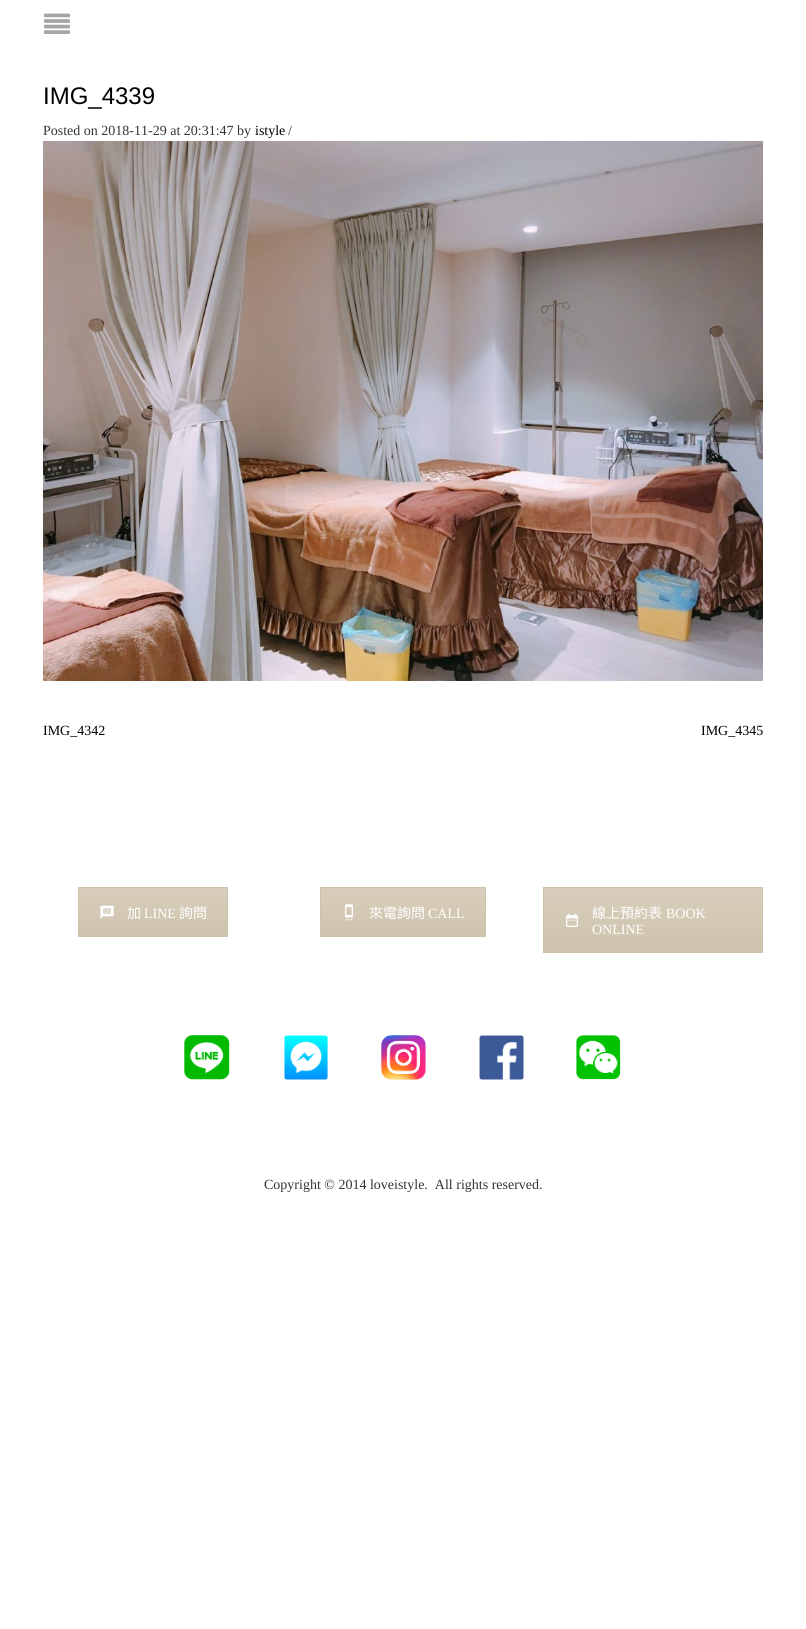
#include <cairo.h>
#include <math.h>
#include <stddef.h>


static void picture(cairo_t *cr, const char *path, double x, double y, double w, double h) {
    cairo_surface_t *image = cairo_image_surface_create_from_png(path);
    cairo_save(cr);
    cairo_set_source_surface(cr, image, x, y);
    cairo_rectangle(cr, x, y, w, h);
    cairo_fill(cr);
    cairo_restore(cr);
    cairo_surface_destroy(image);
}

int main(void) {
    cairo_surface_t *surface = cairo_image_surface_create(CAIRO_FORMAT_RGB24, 806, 1629);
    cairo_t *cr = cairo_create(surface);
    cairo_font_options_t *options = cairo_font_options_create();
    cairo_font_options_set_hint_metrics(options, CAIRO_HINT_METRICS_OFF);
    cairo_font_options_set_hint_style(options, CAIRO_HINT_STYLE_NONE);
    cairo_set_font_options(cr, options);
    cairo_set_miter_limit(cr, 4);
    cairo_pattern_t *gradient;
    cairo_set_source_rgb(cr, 1, 1, 1);
    cairo_paint(cr);
    picture(cr, "img1.png", 44, 13, 26, 21);
    cairo_select_font_face(cr, "Liberation Sans", CAIRO_FONT_SLANT_NORMAL, CAIRO_FONT_WEIGHT_NORMAL);
    cairo_set_font_size(cr, 24);
    cairo_set_source_rgb(cr, 0, 0, 0);
    cairo_move_to(cr, 43, 104);
    cairo_show_text(cr, "IMG_4339");
    cairo_select_font_face(cr, "Liberation Serif", CAIRO_FONT_SLANT_NORMAL, CAIRO_FONT_WEIGHT_NORMAL);
    cairo_set_font_size(cr, 14);
    cairo_set_source_rgb(cr, 0.2, 0.2, 0.2);
    cairo_move_to(cr, 43, 135);
    cairo_show_text(cr, "Posted on 2018-11-29 at 20:31:47 by");
    cairo_set_source_rgb(cr, 0, 0, 0);
    cairo_move_to(cr, 255, 135);
    cairo_show_text(cr, "istyle");
    cairo_set_source_rgb(cr, 0.2, 0.2, 0.2);
    cairo_move_to(cr, 288, 135);
    cairo_show_text(cr, "/");
    picture(cr, "img2.png", 43, 141, 720, 540);
    cairo_set_source_rgb(cr, 0, 0, 0);
    cairo_move_to(cr, 43, 735);
    cairo_show_text(cr, "IMG_4342");
    cairo_move_to(cr, 701, 735);
    cairo_show_text(cr, "IMG_4345");
    gradient = cairo_pattern_create_linear(153, 888, 153, 936);
    cairo_pattern_add_color_stop_rgba(gradient, 0, 0.847, 0.808, 0.737, 1);
    cairo_pattern_add_color_stop_rgba(gradient, 1, 0.808, 0.765, 0.675, 1);
    cairo_set_source(cr, gradient);
    cairo_pattern_destroy(gradient);
    cairo_rectangle(cr, 79, 888, 148, 48);
    cairo_fill(cr);
    cairo_rectangle(cr, 78.5, 887.5, 149, 49);
    cairo_set_source_rgb(cr, 0.808, 0.761, 0.671);
    cairo_set_line_width(cr, 1);
    cairo_stroke(cr);
    picture(cr, "img3.png", 100, 905, 14, 14);
    cairo_select_font_face(cr, "Noto Sans CJK TC", CAIRO_FONT_SLANT_NORMAL, CAIRO_FONT_WEIGHT_NORMAL);
    cairo_set_source_rgb(cr, 1, 1, 1);
    cairo_move_to(cr, 127, 918);
    cairo_show_text(cr, "加");
    cairo_select_font_face(cr, "Liberation Serif", CAIRO_FONT_SLANT_NORMAL, CAIRO_FONT_WEIGHT_NORMAL);
    cairo_move_to(cr, 144, 918);
    cairo_show_text(cr, "LINE");
    cairo_select_font_face(cr, "Noto Sans CJK TC", CAIRO_FONT_SLANT_NORMAL, CAIRO_FONT_WEIGHT_NORMAL);
    cairo_move_to(cr, 179, 918);
    cairo_show_text(cr, "詢問");
    gradient = cairo_pattern_create_linear(403, 888, 403, 936);
    cairo_pattern_add_color_stop_rgba(gradient, 0, 0.847, 0.808, 0.737, 1);
    cairo_pattern_add_color_stop_rgba(gradient, 1, 0.808, 0.765, 0.675, 1);
    cairo_set_source(cr, gradient);
    cairo_pattern_destroy(gradient);
    cairo_rectangle(cr, 321, 888, 164, 48);
    cairo_fill(cr);
    cairo_rectangle(cr, 320.5, 887.5, 165, 49);
    cairo_set_source_rgb(cr, 0.808, 0.761, 0.671);
    cairo_stroke(cr);
    picture(cr, "img4.png", 345, 904, 8, 17);
    cairo_set_source_rgb(cr, 1, 1, 1);
    cairo_move_to(cr, 369, 918);
    cairo_show_text(cr, "來電詢問");
    cairo_select_font_face(cr, "Liberation Serif", CAIRO_FONT_SLANT_NORMAL, CAIRO_FONT_WEIGHT_NORMAL);
    cairo_move_to(cr, 428, 918);
    cairo_show_text(cr, "CALL");
    gradient = cairo_pattern_create_linear(653, 888, 653, 952);
    cairo_pattern_add_color_stop_rgba(gradient, 0, 0.847, 0.808, 0.737, 1);
    cairo_pattern_add_color_stop_rgba(gradient, 1, 0.808, 0.765, 0.675, 1);
    cairo_set_source(cr, gradient);
    cairo_pattern_destroy(gradient);
    cairo_rectangle(cr, 544, 888, 218, 64);
    cairo_fill(cr);
    cairo_rectangle(cr, 543.5, 887.5, 219, 65);
    cairo_set_source_rgb(cr, 0.808, 0.761, 0.671);
    cairo_stroke(cr);
    picture(cr, "img5.png", 566, 913, 12, 14);
    cairo_select_font_face(cr, "Noto Sans CJK TC", CAIRO_FONT_SLANT_NORMAL, CAIRO_FONT_WEIGHT_NORMAL);
    cairo_set_source_rgb(cr, 1, 1, 1);
    cairo_move_to(cr, 592, 918);
    cairo_show_text(cr, "線上預約表");
    cairo_select_font_face(cr, "Liberation Serif", CAIRO_FONT_SLANT_NORMAL, CAIRO_FONT_WEIGHT_NORMAL);
    cairo_move_to(cr, 666, 918);
    cairo_show_text(cr, "BOOK");
    cairo_move_to(cr, 592, 934);
    cairo_show_text(cr, "ONLINE");
    picture(cr, "img6.png", 184, 1035, 46, 45);
    picture(cr, "img7.png", 284, 1035, 44, 45);
    picture(cr, "img8.png", 381, 1035, 45, 45);
    picture(cr, "img9.png", 479, 1035, 45, 45);
    picture(cr, "img10.png", 576, 1035, 45, 45);
    cairo_set_source_rgb(cr, 0.2, 0.2, 0.2);
    cairo_move_to(cr, 264, 1189);
    cairo_show_text(cr, "Copyright © 2014 loveistyle.  All rights reserved.");
    cairo_surface_write_to_png(surface, "page.png");
    cairo_font_options_destroy(options);
    cairo_destroy(cr);
    cairo_surface_destroy(surface);
    return 0;
}
